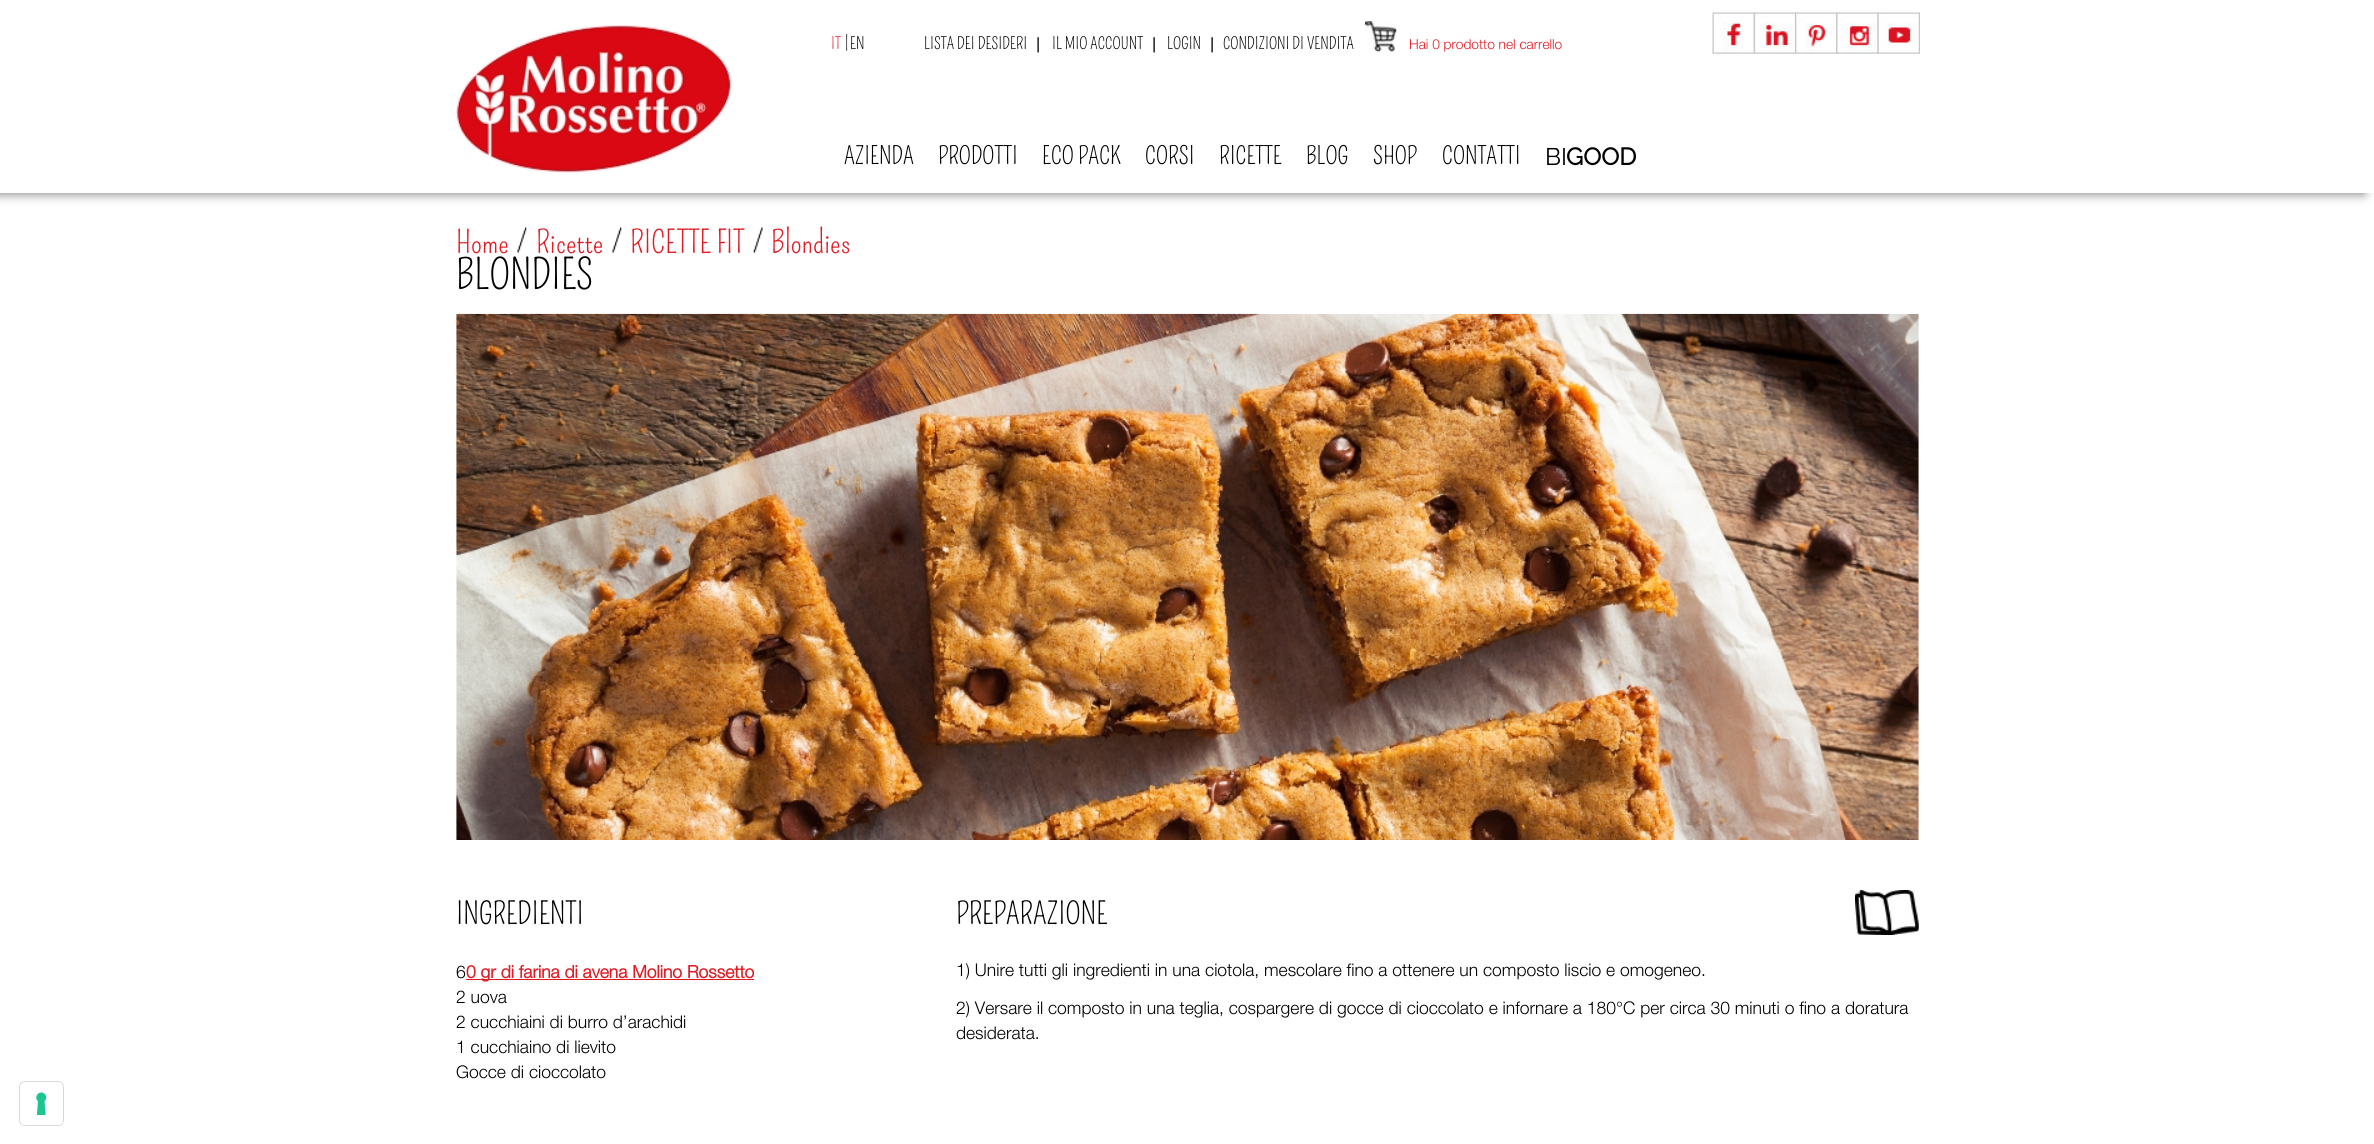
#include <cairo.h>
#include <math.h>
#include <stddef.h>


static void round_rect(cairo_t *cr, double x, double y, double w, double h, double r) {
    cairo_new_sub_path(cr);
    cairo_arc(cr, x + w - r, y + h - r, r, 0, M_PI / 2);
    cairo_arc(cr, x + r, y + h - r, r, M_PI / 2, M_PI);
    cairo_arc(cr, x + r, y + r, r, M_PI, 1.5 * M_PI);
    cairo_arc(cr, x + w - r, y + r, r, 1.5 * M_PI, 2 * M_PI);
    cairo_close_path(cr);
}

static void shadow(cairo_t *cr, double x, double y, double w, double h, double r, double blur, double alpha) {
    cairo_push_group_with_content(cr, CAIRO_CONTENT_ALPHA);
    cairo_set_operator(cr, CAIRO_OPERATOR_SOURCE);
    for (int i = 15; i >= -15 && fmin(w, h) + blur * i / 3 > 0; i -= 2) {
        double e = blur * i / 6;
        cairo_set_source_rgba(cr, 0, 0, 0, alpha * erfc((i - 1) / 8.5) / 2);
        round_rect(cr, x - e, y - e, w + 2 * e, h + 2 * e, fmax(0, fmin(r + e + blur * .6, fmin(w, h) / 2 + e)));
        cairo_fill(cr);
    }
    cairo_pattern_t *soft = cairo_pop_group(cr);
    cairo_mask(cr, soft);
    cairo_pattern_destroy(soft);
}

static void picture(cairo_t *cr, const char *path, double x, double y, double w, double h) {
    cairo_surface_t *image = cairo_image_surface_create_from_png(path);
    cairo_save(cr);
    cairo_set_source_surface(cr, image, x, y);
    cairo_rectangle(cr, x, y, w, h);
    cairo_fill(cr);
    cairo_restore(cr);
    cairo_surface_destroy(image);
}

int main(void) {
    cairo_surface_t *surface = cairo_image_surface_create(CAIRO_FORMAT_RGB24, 2374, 1144);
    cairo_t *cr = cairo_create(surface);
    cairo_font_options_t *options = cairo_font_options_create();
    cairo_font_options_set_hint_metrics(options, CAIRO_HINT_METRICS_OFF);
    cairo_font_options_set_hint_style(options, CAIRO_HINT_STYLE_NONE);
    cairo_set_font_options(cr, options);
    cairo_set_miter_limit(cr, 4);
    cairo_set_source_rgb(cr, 1, 1, 1);
    cairo_paint(cr);
    cairo_save(cr);
    cairo_set_fill_rule(cr, CAIRO_FILL_RULE_EVEN_ODD);
    cairo_new_path(cr);
    cairo_move_to(cr, 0, 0);
    cairo_line_to(cr, 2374, 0);
    cairo_line_to(cr, 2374, 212);
    cairo_line_to(cr, 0, 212);
    cairo_close_path(cr);
    cairo_move_to(cr, 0, 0);
    cairo_line_to(cr, 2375, 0);
    cairo_line_to(cr, 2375, 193);
    cairo_line_to(cr, 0, 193);
    cairo_close_path(cr);
    cairo_clip(cr);
    cairo_set_source_rgb(cr, 0.502, 0.502, 0.502);
    shadow(cr, -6, 6, 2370, 188, 0, 5.5, 1);
    cairo_restore(cr);
    picture(cr, "img1.png", 456, 25, 276, 148);
    cairo_select_font_face(cr, "Pompiere", CAIRO_FONT_SLANT_NORMAL, CAIRO_FONT_WEIGHT_NORMAL);
    cairo_set_font_size(cr, 16.25);
    cairo_set_source_rgb(cr, 0.878, 0.106, 0.141);
    cairo_move_to(cr, 831, 49);
    cairo_show_text(cr, "IT");
    cairo_set_source_rgb(cr, 0, 0, 0);
    cairo_move_to(cr, 845, 49);
    cairo_show_text(cr, "|");
    cairo_move_to(cr, 850, 49);
    cairo_show_text(cr, "EN");
    cairo_move_to(cr, 924, 49);
    cairo_show_text(cr, "LISTA DEI DESIDERI");
    cairo_select_font_face(cr, "Liberation Sans", CAIRO_FONT_SLANT_NORMAL, CAIRO_FONT_WEIGHT_NORMAL);
    cairo_move_to(cr, 1036, 49);
    cairo_show_text(cr, "|");
    cairo_select_font_face(cr, "Pompiere", CAIRO_FONT_SLANT_NORMAL, CAIRO_FONT_WEIGHT_NORMAL);
    cairo_move_to(cr, 1052, 49);
    cairo_show_text(cr, "IL MIO ACCOUNT");
    cairo_select_font_face(cr, "Liberation Sans", CAIRO_FONT_SLANT_NORMAL, CAIRO_FONT_WEIGHT_NORMAL);
    cairo_move_to(cr, 1152, 49);
    cairo_show_text(cr, "|");
    cairo_select_font_face(cr, "Pompiere", CAIRO_FONT_SLANT_NORMAL, CAIRO_FONT_WEIGHT_NORMAL);
    cairo_move_to(cr, 1167, 49);
    cairo_show_text(cr, "LOGIN");
    cairo_select_font_face(cr, "Liberation Sans", CAIRO_FONT_SLANT_NORMAL, CAIRO_FONT_WEIGHT_NORMAL);
    cairo_move_to(cr, 1210, 49);
    cairo_show_text(cr, "|");
    cairo_select_font_face(cr, "Pompiere", CAIRO_FONT_SLANT_NORMAL, CAIRO_FONT_WEIGHT_NORMAL);
    cairo_move_to(cr, 1223, 49);
    cairo_show_text(cr, "CONDIZIONI DI VENDITA");
    picture(cr, "img2.png", 1365, 21, 32, 31);
    cairo_select_font_face(cr, "Helvetica Neue Light", CAIRO_FONT_SLANT_NORMAL, CAIRO_FONT_WEIGHT_NORMAL);
    cairo_set_font_size(cr, 13.75);
    cairo_set_source_rgb(cr, 0.878, 0.106, 0.141);
    cairo_move_to(cr, 1409, 49);
    cairo_show_text(cr, "Hai 0 prodotto nel carrello");
    picture(cr, "img3.png", 1712, 12, 43, 42);
    picture(cr, "img4.png", 1753, 12, 44, 42);
    picture(cr, "img5.png", 1795, 12, 43, 42);
    picture(cr, "img6.png", 1836, 12, 43, 42);
    picture(cr, "img7.png", 1877, 12, 43, 42);
    cairo_select_font_face(cr, "Pompiere", CAIRO_FONT_SLANT_NORMAL, CAIRO_FONT_WEIGHT_NORMAL);
    cairo_set_font_size(cr, 24);
    cairo_set_source_rgb(cr, 0, 0, 0);
    cairo_move_to(cr, 844, 164);
    cairo_show_text(cr, "AZIENDA");
    cairo_move_to(cr, 938, 164);
    cairo_show_text(cr, "PRODOTTI");
    cairo_move_to(cr, 1042, 164);
    cairo_show_text(cr, "ECO PACK");
    cairo_move_to(cr, 1145, 164);
    cairo_show_text(cr, "CORSI");
    cairo_move_to(cr, 1219, 164);
    cairo_show_text(cr, "RICETTE");
    cairo_move_to(cr, 1306, 164);
    cairo_show_text(cr, "BLOG");
    cairo_move_to(cr, 1373, 164);
    cairo_show_text(cr, "SHOP");
    cairo_move_to(cr, 1442, 164);
    cairo_show_text(cr, "CONTATTI");
    cairo_select_font_face(cr, "Raleway Thin", CAIRO_FONT_SLANT_NORMAL, CAIRO_FONT_WEIGHT_NORMAL);
    cairo_move_to(cr, 1545, 165);
    cairo_show_text(cr, "BI");
    cairo_select_font_face(cr, "Raleway", CAIRO_FONT_SLANT_NORMAL, CAIRO_FONT_WEIGHT_BOLD);
    cairo_move_to(cr, 1566, 165);
    cairo_show_text(cr, "GOOD");
    cairo_select_font_face(cr, "Pompiere", CAIRO_FONT_SLANT_NORMAL, CAIRO_FONT_WEIGHT_NORMAL);
    cairo_set_font_size(cr, 31);
    cairo_set_source_rgb(cr, 0.878, 0.106, 0.141);
    cairo_move_to(cr, 456, 253);
    cairo_show_text(cr, "Home");
    picture(cr, "img8.png", 517, 227, 10, 26);
    cairo_move_to(cr, 536, 253);
    cairo_show_text(cr, "Ricette");
    picture(cr, "img8.png", 612, 227, 10, 26);
    cairo_move_to(cr, 630, 253);
    cairo_show_text(cr, "RICETTE FIT");
    picture(cr, "img9.png", 753, 227, 10, 26);
    cairo_move_to(cr, 771, 253);
    cairo_show_text(cr, "Blondies");
    cairo_set_font_size(cr, 41);
    cairo_set_source_rgb(cr, 0, 0, 0);
    cairo_move_to(cr, 456, 289);
    cairo_show_text(cr, "BLONDIES");
    picture(cr, "img10.png", 456, 313, 1463, 527);
    cairo_set_font_size(cr, 30);
    cairo_move_to(cr, 456, 924);
    cairo_show_text(cr, "INGREDIENTI");
    cairo_select_font_face(cr, "Helvetica Neue Light", CAIRO_FONT_SLANT_NORMAL, CAIRO_FONT_WEIGHT_NORMAL);
    cairo_set_font_size(cr, 17.5);
    cairo_move_to(cr, 456, 978);
    cairo_show_text(cr, "6");
    cairo_set_source_rgb(cr, 0.878, 0.106, 0.141);
    cairo_rectangle(cr, 466, 979, 288, 1);
    cairo_fill(cr);
    cairo_select_font_face(cr, "Helvetica Neue", CAIRO_FONT_SLANT_NORMAL, CAIRO_FONT_WEIGHT_BOLD);
    cairo_move_to(cr, 466, 978);
    cairo_show_text(cr, "0 gr di farina di avena Molino Rossetto");
    cairo_select_font_face(cr, "Helvetica Neue Light", CAIRO_FONT_SLANT_NORMAL, CAIRO_FONT_WEIGHT_NORMAL);
    cairo_set_source_rgb(cr, 0, 0, 0);
    cairo_move_to(cr, 456, 1003);
    cairo_show_text(cr, "2 uova");
    cairo_move_to(cr, 456, 1028);
    cairo_show_text(cr, "2 cucchiaini di burro d’arachidi");
    cairo_move_to(cr, 456, 1053);
    cairo_show_text(cr, "1 cucchiaino di lievito");
    cairo_move_to(cr, 456, 1078);
    cairo_show_text(cr, "Gocce di cioccolato");
    cairo_select_font_face(cr, "Pompiere", CAIRO_FONT_SLANT_NORMAL, CAIRO_FONT_WEIGHT_NORMAL);
    cairo_set_font_size(cr, 30);
    cairo_move_to(cr, 956, 924);
    cairo_show_text(cr, "PREPARAZIONE");
    picture(cr, "img11.png", 1855, 890, 64, 45);
    cairo_select_font_face(cr, "Helvetica Neue Light", CAIRO_FONT_SLANT_NORMAL, CAIRO_FONT_WEIGHT_NORMAL);
    cairo_set_font_size(cr, 17.5);
    cairo_move_to(cr, 956, 976);
    cairo_show_text(cr, "1) Unire tutti gli ingredienti in una ciotola, mescolare fino a ottenere un composto liscio e omogeneo.");
    cairo_move_to(cr, 956, 1014);
    cairo_show_text(cr, "2) Versare il composto in una teglia, cospargere di gocce di cioccolato e infornare a 180°C per circa 30 minuti o fino a doratura");
    cairo_move_to(cr, 956, 1039);
    cairo_show_text(cr, "desiderata.");
    round_rect(cr, 19.5, 1081.5, 44, 44, 5.5);
    cairo_set_source_rgb(cr, 0.851, 0.851, 0.851);
    cairo_set_line_width(cr, 1);
    cairo_stroke(cr);
    cairo_set_source_rgb(cr, 1, 1, 1);
    round_rect(cr, 20, 1083, 43, 42, 5);
    cairo_fill(cr);
    picture(cr, "img12.png", 36, 1092, 11, 23);
    cairo_surface_write_to_png(surface, "page.png");
    cairo_font_options_destroy(options);
    cairo_destroy(cr);
    cairo_surface_destroy(surface);
    return 0;
}
